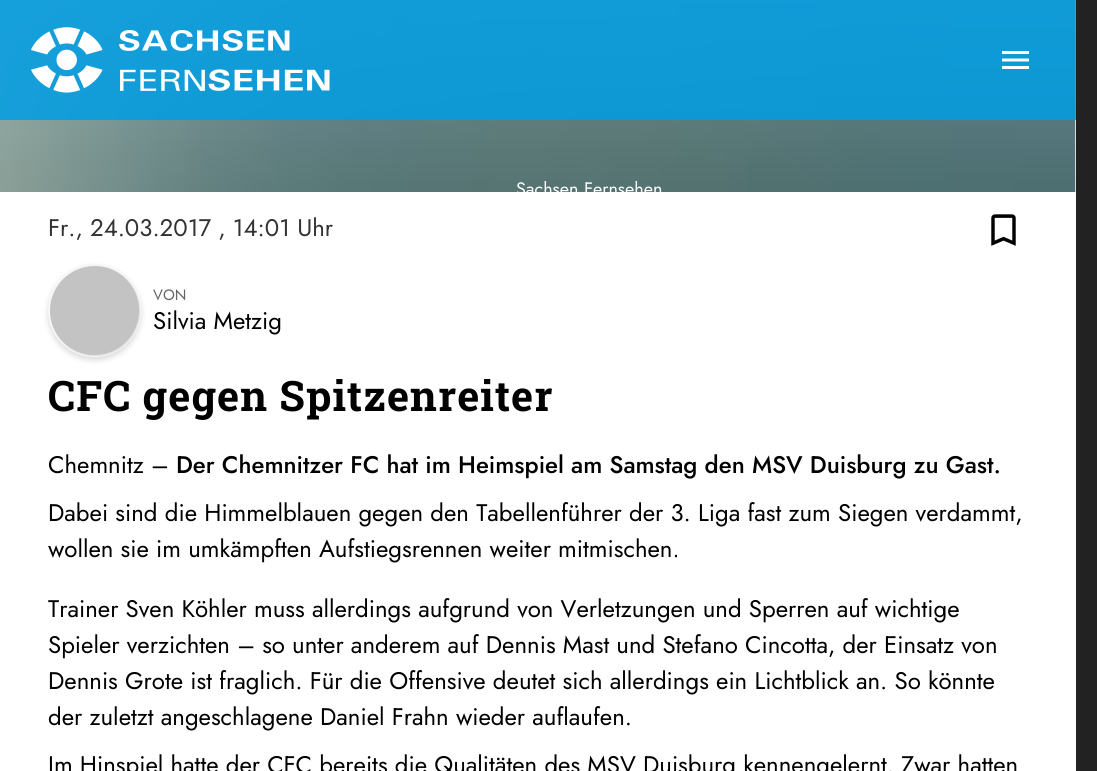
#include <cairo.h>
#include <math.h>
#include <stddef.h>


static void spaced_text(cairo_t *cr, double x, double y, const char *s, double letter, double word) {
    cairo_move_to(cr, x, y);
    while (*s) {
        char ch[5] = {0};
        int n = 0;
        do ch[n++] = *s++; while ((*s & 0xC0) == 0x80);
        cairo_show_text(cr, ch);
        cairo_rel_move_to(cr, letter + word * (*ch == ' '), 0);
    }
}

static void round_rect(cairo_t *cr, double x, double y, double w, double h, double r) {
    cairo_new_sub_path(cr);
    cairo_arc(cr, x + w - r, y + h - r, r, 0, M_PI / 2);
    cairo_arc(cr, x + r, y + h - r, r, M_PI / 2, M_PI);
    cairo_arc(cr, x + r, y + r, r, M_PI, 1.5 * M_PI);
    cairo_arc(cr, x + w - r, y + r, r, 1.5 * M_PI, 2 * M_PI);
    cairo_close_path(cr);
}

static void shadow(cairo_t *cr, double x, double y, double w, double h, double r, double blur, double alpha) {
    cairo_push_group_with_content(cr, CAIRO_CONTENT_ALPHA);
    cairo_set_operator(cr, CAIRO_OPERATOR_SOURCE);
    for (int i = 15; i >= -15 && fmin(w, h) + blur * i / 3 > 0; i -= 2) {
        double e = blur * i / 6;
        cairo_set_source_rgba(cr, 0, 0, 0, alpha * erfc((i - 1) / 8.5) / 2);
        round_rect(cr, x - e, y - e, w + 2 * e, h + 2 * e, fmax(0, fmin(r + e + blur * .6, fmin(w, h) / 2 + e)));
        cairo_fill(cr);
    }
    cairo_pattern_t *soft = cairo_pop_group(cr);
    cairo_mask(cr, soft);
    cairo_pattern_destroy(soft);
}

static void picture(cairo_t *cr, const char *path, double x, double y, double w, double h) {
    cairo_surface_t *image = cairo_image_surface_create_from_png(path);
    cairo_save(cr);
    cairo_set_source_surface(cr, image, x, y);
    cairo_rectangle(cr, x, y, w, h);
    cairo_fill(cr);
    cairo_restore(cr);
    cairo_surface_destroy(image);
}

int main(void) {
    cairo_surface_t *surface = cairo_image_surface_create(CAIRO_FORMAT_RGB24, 1097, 771);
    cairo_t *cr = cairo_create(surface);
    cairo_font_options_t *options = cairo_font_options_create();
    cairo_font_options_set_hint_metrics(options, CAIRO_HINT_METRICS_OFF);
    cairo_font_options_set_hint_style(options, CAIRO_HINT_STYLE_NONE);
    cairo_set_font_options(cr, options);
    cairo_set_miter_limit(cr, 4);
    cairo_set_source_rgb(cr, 0.133, 0.133, 0.133);
    cairo_paint(cr);
    cairo_set_source_rgb(cr, 1, 1, 1);
    cairo_rectangle(cr, 1075, 0, 1, 192);
    cairo_fill(cr);
    picture(cr, "img3.png", 0, 0, 1076, 192);
    cairo_set_source_rgba(cr, 0, 0.62, 0.89, 0.85);
    cairo_rectangle(cr, 0, 0, 1076, 120);
    cairo_fill(cr);
    picture(cr, "img1.png", 31, 27, 299, 66);
    picture(cr, "img2.png", 1002, 51, 27, 18);
    cairo_save(cr);
    round_rect(cr, 401, 168, 274, 24, 6);
    cairo_clip(cr);
    cairo_select_font_face(cr, "Jost", CAIRO_FONT_SLANT_NORMAL, CAIRO_FONT_WEIGHT_NORMAL);
    cairo_set_font_size(cr, 18);
    cairo_set_source_rgb(cr, 1, 1, 1);
    cairo_move_to(cr, 516, 195);
    cairo_show_text(cr, "Sachsen Fernsehen");
    cairo_restore(cr);
    cairo_set_source_rgb(cr, 1, 1, 1);
    cairo_rectangle(cr, 0, 192, 1076, 579);
    cairo_fill(cr);
    cairo_select_font_face(cr, "Jost", CAIRO_FONT_SLANT_NORMAL, CAIRO_FONT_WEIGHT_NORMAL);
    cairo_set_font_size(cr, 24);
    cairo_set_source_rgb(cr, 0.2, 0.2, 0.2);
    cairo_move_to(cr, 48, 236);
    cairo_show_text(cr, "Fr., 24.03.2017 , 14:01 Uhr");
    picture(cr, "img4.png", 991, 214, 25, 32);
    cairo_set_source_rgb(cr, 0, 0, 0);
    shadow(cr, 48, 267, 93, 93, 46.5, 3, 0.15);
    cairo_set_source_rgb(cr, 0.847, 0.847, 0.847);
    cairo_arc(cr, 94.5, 310.5, 45.5, 0, 2 * M_PI);
    cairo_fill_preserve(cr);
    cairo_set_source_rgb(cr, 0.961, 0.961, 0.961);
    cairo_stroke(cr);
    cairo_set_source_rgba(cr, 0, 0, 0, 0.1);
    cairo_arc(cr, 95, 311, 45, 0, 2 * M_PI);
    cairo_fill(cr);
    cairo_set_font_size(cr, 15);
    cairo_set_source_rgb(cr, 0.4, 0.4, 0.4);
    cairo_move_to(cr, 153, 300);
    cairo_show_text(cr, "VON");
    cairo_set_font_size(cr, 24);
    cairo_set_source_rgb(cr, 0, 0, 0);
    cairo_move_to(cr, 153, 329);
    cairo_show_text(cr, "Silvia Metzig");
    cairo_select_font_face(cr, "Roboto Slab", CAIRO_FONT_SLANT_NORMAL, CAIRO_FONT_WEIGHT_BOLD);
    cairo_set_font_size(cr, 42);
    spaced_text(cr, 48, 411, "CFC gegen Spitzenreiter", 1.05, 0);
    cairo_select_font_face(cr, "Jost", CAIRO_FONT_SLANT_NORMAL, CAIRO_FONT_WEIGHT_NORMAL);
    cairo_set_font_size(cr, 24);
    cairo_move_to(cr, 48, 473);
    cairo_show_text(cr, "Chemnitz –");
    cairo_select_font_face(cr, "Jost Medium", CAIRO_FONT_SLANT_NORMAL, CAIRO_FONT_WEIGHT_NORMAL);
    cairo_move_to(cr, 176, 473);
    cairo_show_text(cr, "Der Chemnitzer FC hat im Heimspiel am Samstag den MSV Duisburg zu Gast.");
    cairo_select_font_face(cr, "Jost", CAIRO_FONT_SLANT_NORMAL, CAIRO_FONT_WEIGHT_NORMAL);
    cairo_move_to(cr, 48, 521);
    cairo_show_text(cr, "Dabei sind die Himmelblauen gegen den Tabellenführer der 3. Liga fast zum Siegen verdammt,");
    cairo_move_to(cr, 48, 557);
    cairo_show_text(cr, "wollen sie im umkämpften Aufstiegsrennen weiter mitmischen.");
    cairo_move_to(cr, 48, 617);
    cairo_show_text(cr, "Trainer Sven Köhler muss allerdings aufgrund von Verletzungen und Sperren auf wichtige");
    cairo_move_to(cr, 48, 653);
    cairo_show_text(cr, "Spieler verzichten – so unter anderem auf Dennis Mast und Stefano Cincotta, der Einsatz von");
    cairo_move_to(cr, 48, 689);
    cairo_show_text(cr, "Dennis Grote ist fraglich. Für die Offensive deutet sich allerdings ein Lichtblick an. So könnte");
    cairo_move_to(cr, 48, 725);
    cairo_show_text(cr, "der zuletzt angeschlagene Daniel Frahn wieder auflaufen.");
    cairo_move_to(cr, 48, 773);
    cairo_show_text(cr, "Im Hinspiel hatte der CFC bereits die Qualitäten des MSV Duisburg kennengelernt. Zwar hatten");
    cairo_surface_write_to_png(surface, "page.png");
    cairo_font_options_destroy(options);
    cairo_destroy(cr);
    cairo_surface_destroy(surface);
    return 0;
}
